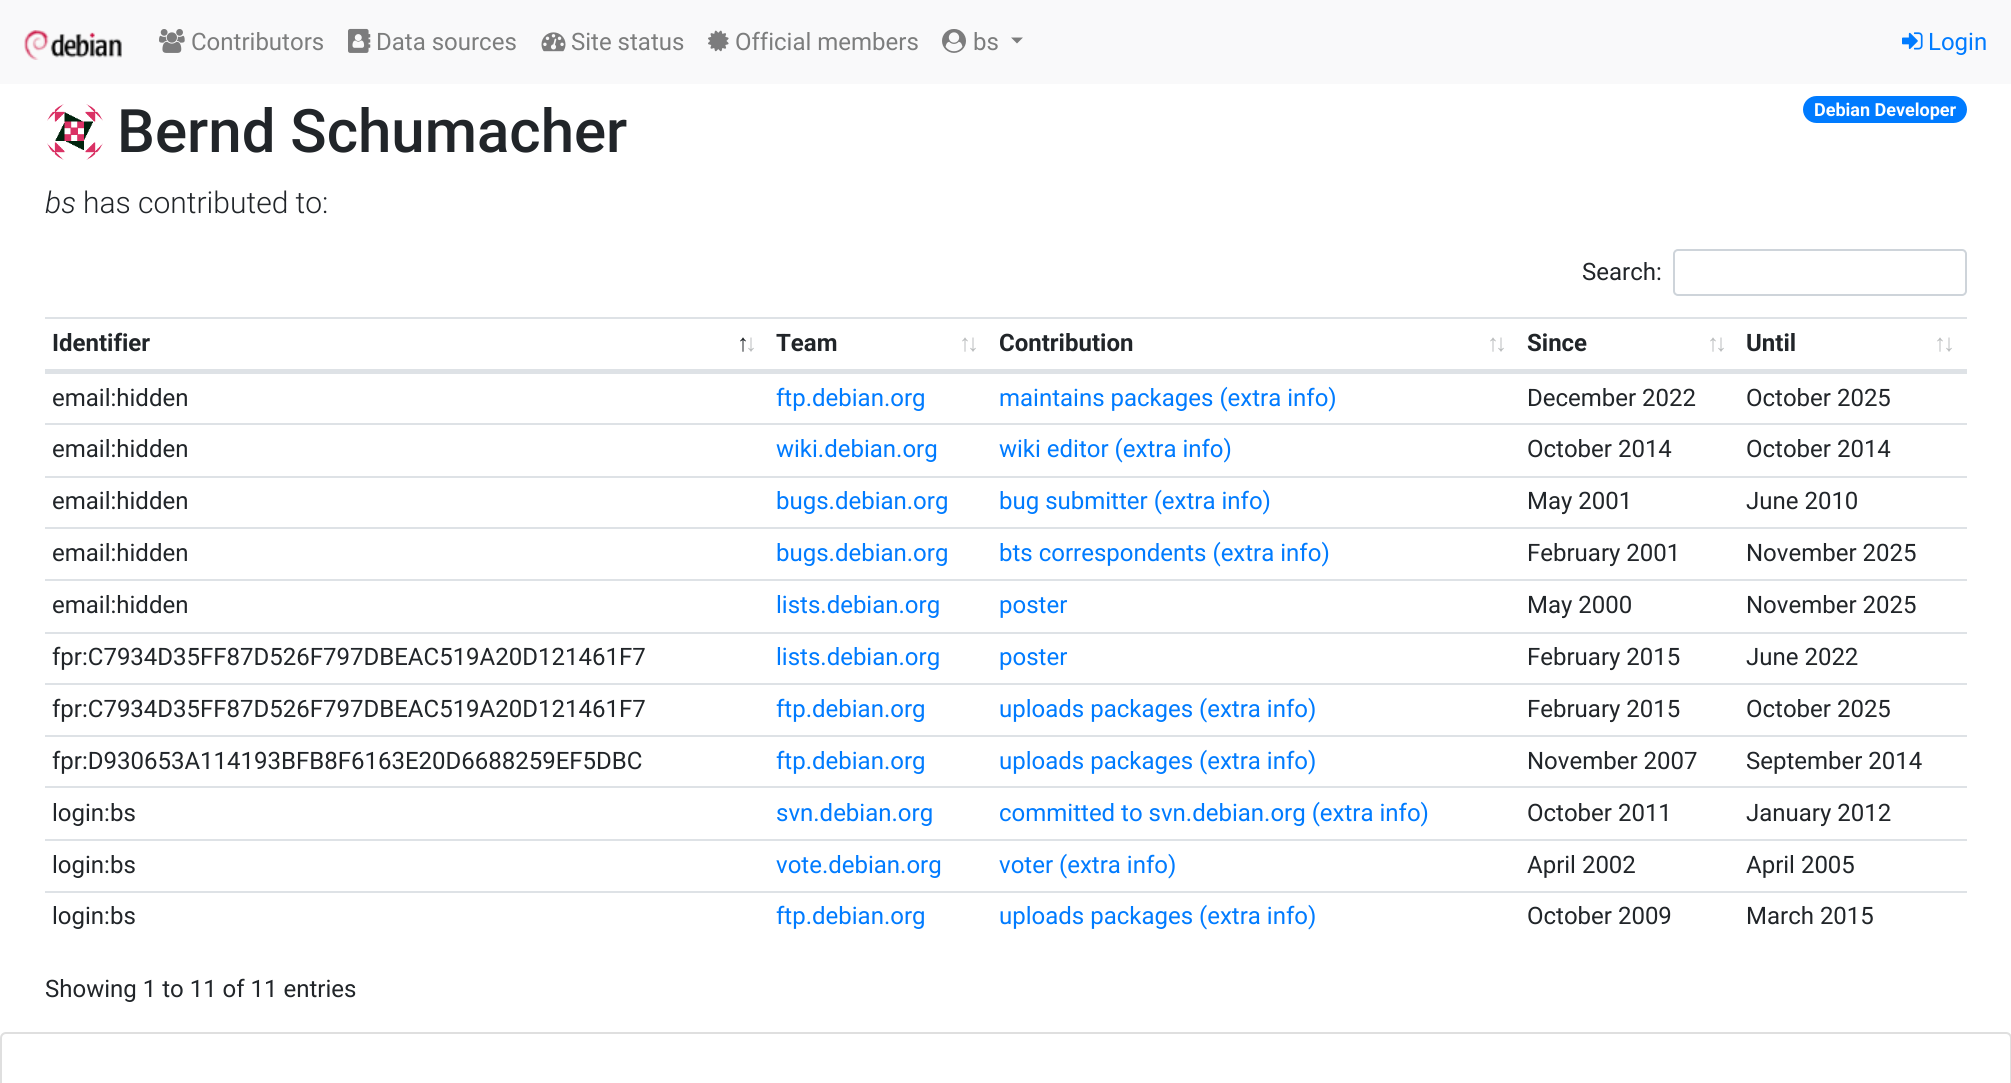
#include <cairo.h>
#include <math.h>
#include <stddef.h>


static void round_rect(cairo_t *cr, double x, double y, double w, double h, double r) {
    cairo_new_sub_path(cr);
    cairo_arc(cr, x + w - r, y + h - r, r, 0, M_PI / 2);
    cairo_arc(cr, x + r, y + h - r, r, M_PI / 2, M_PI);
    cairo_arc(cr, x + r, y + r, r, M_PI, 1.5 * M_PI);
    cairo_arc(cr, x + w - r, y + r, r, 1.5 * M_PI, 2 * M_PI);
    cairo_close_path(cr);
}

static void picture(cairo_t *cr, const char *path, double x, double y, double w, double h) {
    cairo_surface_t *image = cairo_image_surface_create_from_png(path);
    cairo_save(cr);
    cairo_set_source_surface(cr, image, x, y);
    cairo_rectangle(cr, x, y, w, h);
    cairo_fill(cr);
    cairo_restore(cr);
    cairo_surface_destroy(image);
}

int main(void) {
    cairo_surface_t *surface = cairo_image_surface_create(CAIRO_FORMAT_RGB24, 2011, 1083);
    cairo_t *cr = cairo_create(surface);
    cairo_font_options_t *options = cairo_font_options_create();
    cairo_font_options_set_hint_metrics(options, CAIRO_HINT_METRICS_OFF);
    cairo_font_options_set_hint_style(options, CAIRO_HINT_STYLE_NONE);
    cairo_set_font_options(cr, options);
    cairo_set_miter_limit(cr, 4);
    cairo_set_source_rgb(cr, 1, 1, 1);
    cairo_paint(cr);
    cairo_set_source_rgb(cr, 0.973, 0.976, 0.98);
    cairo_rectangle(cr, 0, 0, 2011, 84);
    cairo_fill(cr);
    picture(cr, "img1.png", 24, 30, 98, 30);
    picture(cr, "img2.png", 159, 29, 26, 24);
    cairo_select_font_face(cr, "Roboto", CAIRO_FONT_SLANT_NORMAL, CAIRO_FONT_WEIGHT_NORMAL);
    cairo_set_font_size(cr, 24);
    cairo_set_source_rgb(cr, 0.486, 0.49, 0.49);
    cairo_move_to(cr, 191, 50);
    cairo_show_text(cr, "Contributors");
    picture(cr, "img3.png", 348, 28, 23, 25);
    cairo_move_to(cr, 376, 50);
    cairo_show_text(cr, "Data sources");
    picture(cr, "img4.png", 541, 32, 25, 20);
    cairo_move_to(cr, 571, 50);
    cairo_show_text(cr, "Site status");
    picture(cr, "img5.png", 708, 30, 21, 22);
    cairo_move_to(cr, 735, 50);
    cairo_show_text(cr, "Official members");
    picture(cr, "img6.png", 942, 29, 24, 24);
    cairo_move_to(cr, 973, 50);
    cairo_show_text(cr, "bs");
    cairo_new_path(cr);
    cairo_move_to(cr, 1011, 37.5);
    cairo_line_to(cr, 1023, 37.5);
    cairo_line_to(cr, 1017, 43.5);
    cairo_close_path(cr);
    cairo_fill(cr);
    picture(cr, "img7.png", 1902, 32, 21, 18);
    cairo_set_source_rgb(cr, 0, 0.482, 1);
    cairo_move_to(cr, 1928, 50);
    cairo_show_text(cr, "Login");
    picture(cr, "img8.png", 47, 104, 56, 56);
    cairo_select_font_face(cr, "Roboto Medium", CAIRO_FONT_SLANT_NORMAL, CAIRO_FONT_WEIGHT_NORMAL);
    cairo_set_font_size(cr, 60);
    cairo_set_source_rgb(cr, 0.129, 0.145, 0.161);
    cairo_move_to(cr, 117, 152);
    cairo_show_text(cr, "Bernd Schumacher");
    cairo_set_source_rgb(cr, 0, 0.482, 1);
    round_rect(cr, 1803, 96, 164, 27, 13.5);
    cairo_fill(cr);
    cairo_select_font_face(cr, "Roboto", CAIRO_FONT_SLANT_NORMAL, CAIRO_FONT_WEIGHT_BOLD);
    cairo_set_font_size(cr, 18);
    cairo_set_source_rgb(cr, 1, 1, 1);
    cairo_move_to(cr, 1814, 116);
    cairo_show_text(cr, "Debian Developer");
    cairo_select_font_face(cr, "Roboto Light", CAIRO_FONT_SLANT_ITALIC, CAIRO_FONT_WEIGHT_NORMAL);
    cairo_set_font_size(cr, 30);
    cairo_set_source_rgb(cr, 0.129, 0.145, 0.161);
    cairo_move_to(cr, 45, 213);
    cairo_show_text(cr, "bs");
    cairo_select_font_face(cr, "Roboto Light", CAIRO_FONT_SLANT_NORMAL, CAIRO_FONT_WEIGHT_NORMAL);
    cairo_move_to(cr, 83, 213);
    cairo_show_text(cr, "has contributed to:");
    cairo_select_font_face(cr, "Roboto", CAIRO_FONT_SLANT_NORMAL, CAIRO_FONT_WEIGHT_NORMAL);
    cairo_set_font_size(cr, 24);
    cairo_move_to(cr, 1582, 280);
    cairo_show_text(cr, "Search:");
    round_rect(cr, 1674, 250, 292, 45, 4);
    cairo_set_source_rgb(cr, 0.808, 0.831, 0.855);
    cairo_stroke(cr);
    cairo_set_source_rgb(cr, 0.871, 0.886, 0.902);
    cairo_rectangle(cr, 45, 317, 1922, 2);
    cairo_fill(cr);
    cairo_rectangle(cr, 45, 369, 1922, 3);
    cairo_fill(cr);
    cairo_select_font_face(cr, "Roboto", CAIRO_FONT_SLANT_NORMAL, CAIRO_FONT_WEIGHT_BOLD);
    cairo_set_source_rgb(cr, 0.129, 0.145, 0.161);
    cairo_move_to(cr, 52, 351);
    cairo_show_text(cr, "Identifier");
    cairo_select_font_face(cr, "Liberation Sans", CAIRO_FONT_SLANT_NORMAL, CAIRO_FONT_WEIGHT_BOLD);
    cairo_move_to(cr, 737, 351);
    cairo_show_text(cr, "↑");
    cairo_set_source_rgb(cr, 0.737, 0.745, 0.749);
    cairo_move_to(cr, 745, 351);
    cairo_show_text(cr, "↓");
    cairo_select_font_face(cr, "Roboto", CAIRO_FONT_SLANT_NORMAL, CAIRO_FONT_WEIGHT_BOLD);
    cairo_set_source_rgb(cr, 0.129, 0.145, 0.161);
    cairo_move_to(cr, 776, 351);
    cairo_show_text(cr, "Team");
    cairo_select_font_face(cr, "Liberation Sans", CAIRO_FONT_SLANT_NORMAL, CAIRO_FONT_WEIGHT_BOLD);
    cairo_set_source_rgb(cr, 0.737, 0.745, 0.749);
    cairo_move_to(cr, 959, 351);
    cairo_show_text(cr, "↑");
    cairo_move_to(cr, 967, 351);
    cairo_show_text(cr, "↓");
    cairo_select_font_face(cr, "Roboto", CAIRO_FONT_SLANT_NORMAL, CAIRO_FONT_WEIGHT_BOLD);
    cairo_set_source_rgb(cr, 0.129, 0.145, 0.161);
    cairo_move_to(cr, 999, 351);
    cairo_show_text(cr, "Contribution");
    cairo_select_font_face(cr, "Liberation Sans", CAIRO_FONT_SLANT_NORMAL, CAIRO_FONT_WEIGHT_BOLD);
    cairo_set_source_rgb(cr, 0.737, 0.745, 0.749);
    cairo_move_to(cr, 1487, 351);
    cairo_show_text(cr, "↑");
    cairo_move_to(cr, 1495, 351);
    cairo_show_text(cr, "↓");
    cairo_select_font_face(cr, "Roboto", CAIRO_FONT_SLANT_NORMAL, CAIRO_FONT_WEIGHT_BOLD);
    cairo_set_source_rgb(cr, 0.129, 0.145, 0.161);
    cairo_move_to(cr, 1527, 351);
    cairo_show_text(cr, "Since");
    cairo_select_font_face(cr, "Liberation Sans", CAIRO_FONT_SLANT_NORMAL, CAIRO_FONT_WEIGHT_BOLD);
    cairo_set_source_rgb(cr, 0.737, 0.745, 0.749);
    cairo_move_to(cr, 1707, 351);
    cairo_show_text(cr, "↑");
    cairo_move_to(cr, 1715, 351);
    cairo_show_text(cr, "↓");
    cairo_select_font_face(cr, "Roboto", CAIRO_FONT_SLANT_NORMAL, CAIRO_FONT_WEIGHT_BOLD);
    cairo_set_source_rgb(cr, 0.129, 0.145, 0.161);
    cairo_move_to(cr, 1746, 351);
    cairo_show_text(cr, "Until");
    cairo_select_font_face(cr, "Liberation Sans", CAIRO_FONT_SLANT_NORMAL, CAIRO_FONT_WEIGHT_BOLD);
    cairo_set_source_rgb(cr, 0.737, 0.745, 0.749);
    cairo_move_to(cr, 1934, 351);
    cairo_show_text(cr, "↑");
    cairo_move_to(cr, 1943, 351);
    cairo_show_text(cr, "↓");
    cairo_set_source_rgb(cr, 0.871, 0.886, 0.902);
    cairo_rectangle(cr, 45, 372, 1922, 2);
    cairo_fill(cr);
    cairo_select_font_face(cr, "Roboto", CAIRO_FONT_SLANT_NORMAL, CAIRO_FONT_WEIGHT_NORMAL);
    cairo_set_source_rgb(cr, 0.129, 0.145, 0.161);
    cairo_move_to(cr, 52, 406);
    cairo_show_text(cr, "email:hidden");
    cairo_set_source_rgb(cr, 0, 0.482, 1);
    cairo_move_to(cr, 776, 406);
    cairo_show_text(cr, "ftp.debian.org");
    cairo_move_to(cr, 999, 406);
    cairo_show_text(cr, "maintains packages (extra info)");
    cairo_set_source_rgb(cr, 0.129, 0.145, 0.161);
    cairo_move_to(cr, 1527, 406);
    cairo_show_text(cr, "December 2022");
    cairo_move_to(cr, 1746, 406);
    cairo_show_text(cr, "October 2025");
    cairo_set_source_rgb(cr, 0.871, 0.886, 0.902);
    cairo_rectangle(cr, 45, 423, 1922, 2);
    cairo_fill(cr);
    cairo_set_source_rgb(cr, 0.129, 0.145, 0.161);
    cairo_move_to(cr, 52, 457);
    cairo_show_text(cr, "email:hidden");
    cairo_set_source_rgb(cr, 0, 0.482, 1);
    cairo_move_to(cr, 776, 457);
    cairo_show_text(cr, "wiki.debian.org");
    cairo_move_to(cr, 999, 457);
    cairo_show_text(cr, "wiki editor (extra info)");
    cairo_set_source_rgb(cr, 0.129, 0.145, 0.161);
    cairo_move_to(cr, 1527, 457);
    cairo_show_text(cr, "October 2014");
    cairo_move_to(cr, 1746, 457);
    cairo_show_text(cr, "October 2014");
    cairo_set_source_rgb(cr, 0.871, 0.886, 0.902);
    cairo_rectangle(cr, 45, 476, 1922, 2);
    cairo_fill(cr);
    cairo_set_source_rgb(cr, 0.129, 0.145, 0.161);
    cairo_move_to(cr, 52, 509);
    cairo_show_text(cr, "email:hidden");
    cairo_set_source_rgb(cr, 0, 0.482, 1);
    cairo_move_to(cr, 776, 509);
    cairo_show_text(cr, "bugs.debian.org");
    cairo_move_to(cr, 999, 509);
    cairo_show_text(cr, "bug submitter (extra info)");
    cairo_set_source_rgb(cr, 0.129, 0.145, 0.161);
    cairo_move_to(cr, 1527, 509);
    cairo_show_text(cr, "May 2001");
    cairo_move_to(cr, 1746, 509);
    cairo_show_text(cr, "June 2010");
    cairo_set_source_rgb(cr, 0.871, 0.886, 0.902);
    cairo_rectangle(cr, 45, 527, 1922, 2);
    cairo_fill(cr);
    cairo_set_source_rgb(cr, 0.129, 0.145, 0.161);
    cairo_move_to(cr, 52, 561);
    cairo_show_text(cr, "email:hidden");
    cairo_set_source_rgb(cr, 0, 0.482, 1);
    cairo_move_to(cr, 776, 561);
    cairo_show_text(cr, "bugs.debian.org");
    cairo_move_to(cr, 999, 561);
    cairo_show_text(cr, "bts correspondents (extra info)");
    cairo_set_source_rgb(cr, 0.129, 0.145, 0.161);
    cairo_move_to(cr, 1527, 561);
    cairo_show_text(cr, "February 2001");
    cairo_move_to(cr, 1746, 561);
    cairo_show_text(cr, "November 2025");
    cairo_set_source_rgb(cr, 0.871, 0.886, 0.902);
    cairo_rectangle(cr, 45, 579, 1922, 2);
    cairo_fill(cr);
    cairo_set_source_rgb(cr, 0.129, 0.145, 0.161);
    cairo_move_to(cr, 52, 613);
    cairo_show_text(cr, "email:hidden");
    cairo_set_source_rgb(cr, 0, 0.482, 1);
    cairo_move_to(cr, 776, 613);
    cairo_show_text(cr, "lists.debian.org");
    cairo_move_to(cr, 999, 613);
    cairo_show_text(cr, "poster");
    cairo_set_source_rgb(cr, 0.129, 0.145, 0.161);
    cairo_move_to(cr, 1527, 613);
    cairo_show_text(cr, "May 2000");
    cairo_move_to(cr, 1746, 613);
    cairo_show_text(cr, "November 2025");
    cairo_set_source_rgb(cr, 0.871, 0.886, 0.902);
    cairo_rectangle(cr, 45, 632, 1922, 2);
    cairo_fill(cr);
    cairo_set_source_rgb(cr, 0.129, 0.145, 0.161);
    cairo_move_to(cr, 52, 665);
    cairo_show_text(cr, "fpr:C7934D35FF87D526F797DBEAC519A20D121461F7");
    cairo_set_source_rgb(cr, 0, 0.482, 1);
    cairo_move_to(cr, 776, 665);
    cairo_show_text(cr, "lists.debian.org");
    cairo_move_to(cr, 999, 665);
    cairo_show_text(cr, "poster");
    cairo_set_source_rgb(cr, 0.129, 0.145, 0.161);
    cairo_move_to(cr, 1527, 665);
    cairo_show_text(cr, "February 2015");
    cairo_move_to(cr, 1746, 665);
    cairo_show_text(cr, "June 2022");
    cairo_set_source_rgb(cr, 0.871, 0.886, 0.902);
    cairo_rectangle(cr, 45, 683, 1922, 2);
    cairo_fill(cr);
    cairo_set_source_rgb(cr, 0.129, 0.145, 0.161);
    cairo_move_to(cr, 52, 717);
    cairo_show_text(cr, "fpr:C7934D35FF87D526F797DBEAC519A20D121461F7");
    cairo_set_source_rgb(cr, 0, 0.482, 1);
    cairo_move_to(cr, 776, 717);
    cairo_show_text(cr, "ftp.debian.org");
    cairo_move_to(cr, 999, 717);
    cairo_show_text(cr, "uploads packages (extra info)");
    cairo_set_source_rgb(cr, 0.129, 0.145, 0.161);
    cairo_move_to(cr, 1527, 717);
    cairo_show_text(cr, "February 2015");
    cairo_move_to(cr, 1746, 717);
    cairo_show_text(cr, "October 2025");
    cairo_set_source_rgb(cr, 0.871, 0.886, 0.902);
    cairo_rectangle(cr, 45, 735, 1922, 2);
    cairo_fill(cr);
    cairo_set_source_rgb(cr, 0.129, 0.145, 0.161);
    cairo_move_to(cr, 52, 769);
    cairo_show_text(cr, "fpr:D930653A114193BFB8F6163E20D6688259EF5DBC");
    cairo_set_source_rgb(cr, 0, 0.482, 1);
    cairo_move_to(cr, 776, 769);
    cairo_show_text(cr, "ftp.debian.org");
    cairo_move_to(cr, 999, 769);
    cairo_show_text(cr, "uploads packages (extra info)");
    cairo_set_source_rgb(cr, 0.129, 0.145, 0.161);
    cairo_move_to(cr, 1527, 769);
    cairo_show_text(cr, "November 2007");
    cairo_move_to(cr, 1746, 769);
    cairo_show_text(cr, "September 2014");
    cairo_set_source_rgb(cr, 0.871, 0.886, 0.902);
    cairo_rectangle(cr, 45, 786, 1922, 2);
    cairo_fill(cr);
    cairo_set_source_rgb(cr, 0.129, 0.145, 0.161);
    cairo_move_to(cr, 52, 821);
    cairo_show_text(cr, "login:bs");
    cairo_set_source_rgb(cr, 0, 0.482, 1);
    cairo_move_to(cr, 776, 821);
    cairo_show_text(cr, "svn.debian.org");
    cairo_move_to(cr, 999, 821);
    cairo_show_text(cr, "committed to svn.debian.org (extra info)");
    cairo_set_source_rgb(cr, 0.129, 0.145, 0.161);
    cairo_move_to(cr, 1527, 821);
    cairo_show_text(cr, "October 2011");
    cairo_move_to(cr, 1746, 821);
    cairo_show_text(cr, "January 2012");
    cairo_set_source_rgb(cr, 0.871, 0.886, 0.902);
    cairo_rectangle(cr, 45, 839, 1922, 2);
    cairo_fill(cr);
    cairo_set_source_rgb(cr, 0.129, 0.145, 0.161);
    cairo_move_to(cr, 52, 873);
    cairo_show_text(cr, "login:bs");
    cairo_set_source_rgb(cr, 0, 0.482, 1);
    cairo_move_to(cr, 776, 873);
    cairo_show_text(cr, "vote.debian.org");
    cairo_move_to(cr, 999, 873);
    cairo_show_text(cr, "voter (extra info)");
    cairo_set_source_rgb(cr, 0.129, 0.145, 0.161);
    cairo_move_to(cr, 1527, 873);
    cairo_show_text(cr, "April 2002");
    cairo_move_to(cr, 1746, 873);
    cairo_show_text(cr, "April 2005");
    cairo_set_source_rgb(cr, 0.871, 0.886, 0.902);
    cairo_rectangle(cr, 45, 891, 1922, 2);
    cairo_fill(cr);
    cairo_set_source_rgb(cr, 0.129, 0.145, 0.161);
    cairo_move_to(cr, 52, 924);
    cairo_show_text(cr, "login:bs");
    cairo_set_source_rgb(cr, 0, 0.482, 1);
    cairo_move_to(cr, 776, 924);
    cairo_show_text(cr, "ftp.debian.org");
    cairo_move_to(cr, 999, 924);
    cairo_show_text(cr, "uploads packages (extra info)");
    cairo_set_source_rgb(cr, 0.129, 0.145, 0.161);
    cairo_move_to(cr, 1527, 924);
    cairo_show_text(cr, "October 2009");
    cairo_move_to(cr, 1746, 924);
    cairo_show_text(cr, "March 2015");
    cairo_move_to(cr, 45, 997);
    cairo_show_text(cr, "Showing 1 to 11 of 11 entries");
    round_rect(cr, 1, 1033, 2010, 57, 5);
    cairo_set_source_rgb(cr, 0.875, 0.875, 0.875);
    cairo_stroke(cr);
    cairo_surface_write_to_png(surface, "page.png");
    cairo_font_options_destroy(options);
    cairo_destroy(cr);
    cairo_surface_destroy(surface);
    return 0;
}
